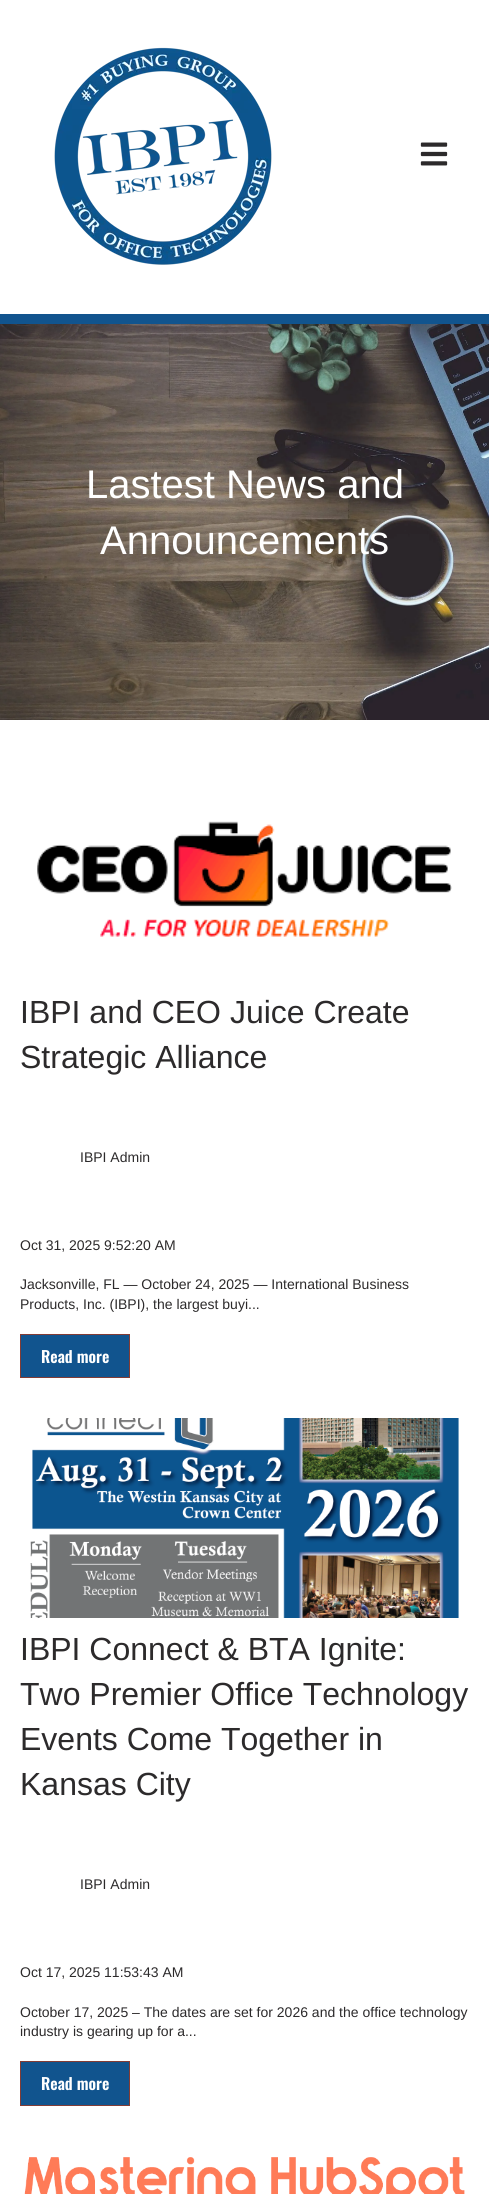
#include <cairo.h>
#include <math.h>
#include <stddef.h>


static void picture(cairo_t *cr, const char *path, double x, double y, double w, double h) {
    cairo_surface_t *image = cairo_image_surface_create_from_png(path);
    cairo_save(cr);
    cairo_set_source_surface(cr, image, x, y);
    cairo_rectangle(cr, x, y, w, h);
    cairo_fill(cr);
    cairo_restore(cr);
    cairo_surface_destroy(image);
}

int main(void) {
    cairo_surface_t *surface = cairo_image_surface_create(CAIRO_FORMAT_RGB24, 489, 2194);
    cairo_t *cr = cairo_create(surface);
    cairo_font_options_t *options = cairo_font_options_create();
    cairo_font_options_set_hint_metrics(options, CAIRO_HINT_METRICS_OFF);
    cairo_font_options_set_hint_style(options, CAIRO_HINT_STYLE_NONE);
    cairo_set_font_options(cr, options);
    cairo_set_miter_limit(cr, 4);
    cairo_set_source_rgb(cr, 1, 1, 1);
    cairo_paint(cr);
    picture(cr, "img1.png", 54, 47, 218, 218);
    picture(cr, "img2.png", 420, 142, 28, 24);
    cairo_set_source_rgb(cr, 0.067, 0.329, 0.557);
    cairo_rectangle(cr, 0, 314, 489, 10);
    cairo_fill(cr);
    picture(cr, "img3.png", 0, 324, 489, 396);
    cairo_select_font_face(cr, "Liberation Sans", CAIRO_FONT_SLANT_NORMAL, CAIRO_FONT_WEIGHT_NORMAL);
    cairo_set_font_size(cr, 40);
    cairo_set_source_rgb(cr, 1, 1, 1);
    cairo_move_to(cr, 86, 498);
    cairo_show_text(cr, "Lastest News and");
    cairo_move_to(cr, 100, 554);
    cairo_show_text(cr, "Announcements");
    picture(cr, "img4.png", 37, 821, 415, 116);
    cairo_set_font_size(cr, 32);
    cairo_set_source_rgb(cr, 0.173, 0.165, 0.169);
    cairo_move_to(cr, 20, 1023);
    cairo_show_text(cr, "IBPI and CEO Juice Create");
    cairo_move_to(cr, 20, 1068);
    cairo_show_text(cr, "Strategic Alliance");
    cairo_set_font_size(cr, 14);
    cairo_move_to(cr, 80, 1162);
    cairo_show_text(cr, "IBPI Admin");
    cairo_move_to(cr, 20, 1250);
    cairo_show_text(cr, "Oct 31, 2025 9:52:20 AM");
    cairo_move_to(cr, 20, 1289);
    cairo_show_text(cr, "Jacksonville, FL — October 24, 2025 — International Business");
    cairo_move_to(cr, 20, 1309);
    cairo_show_text(cr, "Products, Inc. (IBPI), the largest buyi...");
    cairo_set_source_rgb(cr, 0.067, 0.329, 0.557);
    cairo_rectangle(cr, 20.5, 1334.5, 109, 43);
    cairo_fill_preserve(cr);
    cairo_set_source_rgb(cr, 0.514, 0.235, 0.208);
    cairo_set_line_width(cr, 1);
    cairo_stroke(cr);
    cairo_select_font_face(cr, "Oswald SemiBold", CAIRO_FONT_SLANT_NORMAL, CAIRO_FONT_WEIGHT_NORMAL);
    cairo_set_font_size(cr, 16);
    cairo_set_source_rgb(cr, 1, 1, 1);
    cairo_move_to(cr, 41, 1363);
    cairo_show_text(cr, "Read more");
    picture(cr, "img5.png", 30, 1418, 429, 200);
    cairo_select_font_face(cr, "Liberation Sans", CAIRO_FONT_SLANT_NORMAL, CAIRO_FONT_WEIGHT_NORMAL);
    cairo_set_font_size(cr, 32);
    cairo_set_source_rgb(cr, 0.173, 0.165, 0.169);
    cairo_move_to(cr, 20, 1660);
    cairo_show_text(cr, "IBPI Connect & BTA Ignite:");
    cairo_move_to(cr, 20, 1705);
    cairo_show_text(cr, "Two Premier Office Technology");
    cairo_move_to(cr, 20, 1750);
    cairo_show_text(cr, "Events Come Together in");
    cairo_move_to(cr, 20, 1795);
    cairo_show_text(cr, "Kansas City");
    cairo_set_font_size(cr, 14);
    cairo_move_to(cr, 80, 1889);
    cairo_show_text(cr, "IBPI Admin");
    cairo_move_to(cr, 20, 1977);
    cairo_show_text(cr, "Oct 17, 2025 11:53:43 AM");
    cairo_move_to(cr, 20, 2017);
    cairo_show_text(cr, "October 17, 2025 – The dates are set for 2026 and the office technology");
    cairo_move_to(cr, 20, 2036);
    cairo_show_text(cr, "industry is gearing up for a...");
    cairo_set_source_rgb(cr, 0.067, 0.329, 0.557);
    cairo_rectangle(cr, 20.5, 2061.5, 109, 44);
    cairo_fill_preserve(cr);
    cairo_set_source_rgb(cr, 0.514, 0.235, 0.208);
    cairo_stroke(cr);
    cairo_select_font_face(cr, "Oswald SemiBold", CAIRO_FONT_SLANT_NORMAL, CAIRO_FONT_WEIGHT_NORMAL);
    cairo_set_font_size(cr, 16);
    cairo_set_source_rgb(cr, 1, 1, 1);
    cairo_move_to(cr, 41, 2090);
    cairo_show_text(cr, "Read more");
    picture(cr, "img6.png", 24, 2157, 441, 37);
    cairo_surface_write_to_png(surface, "page.png");
    cairo_font_options_destroy(options);
    cairo_destroy(cr);
    cairo_surface_destroy(surface);
    return 0;
}
